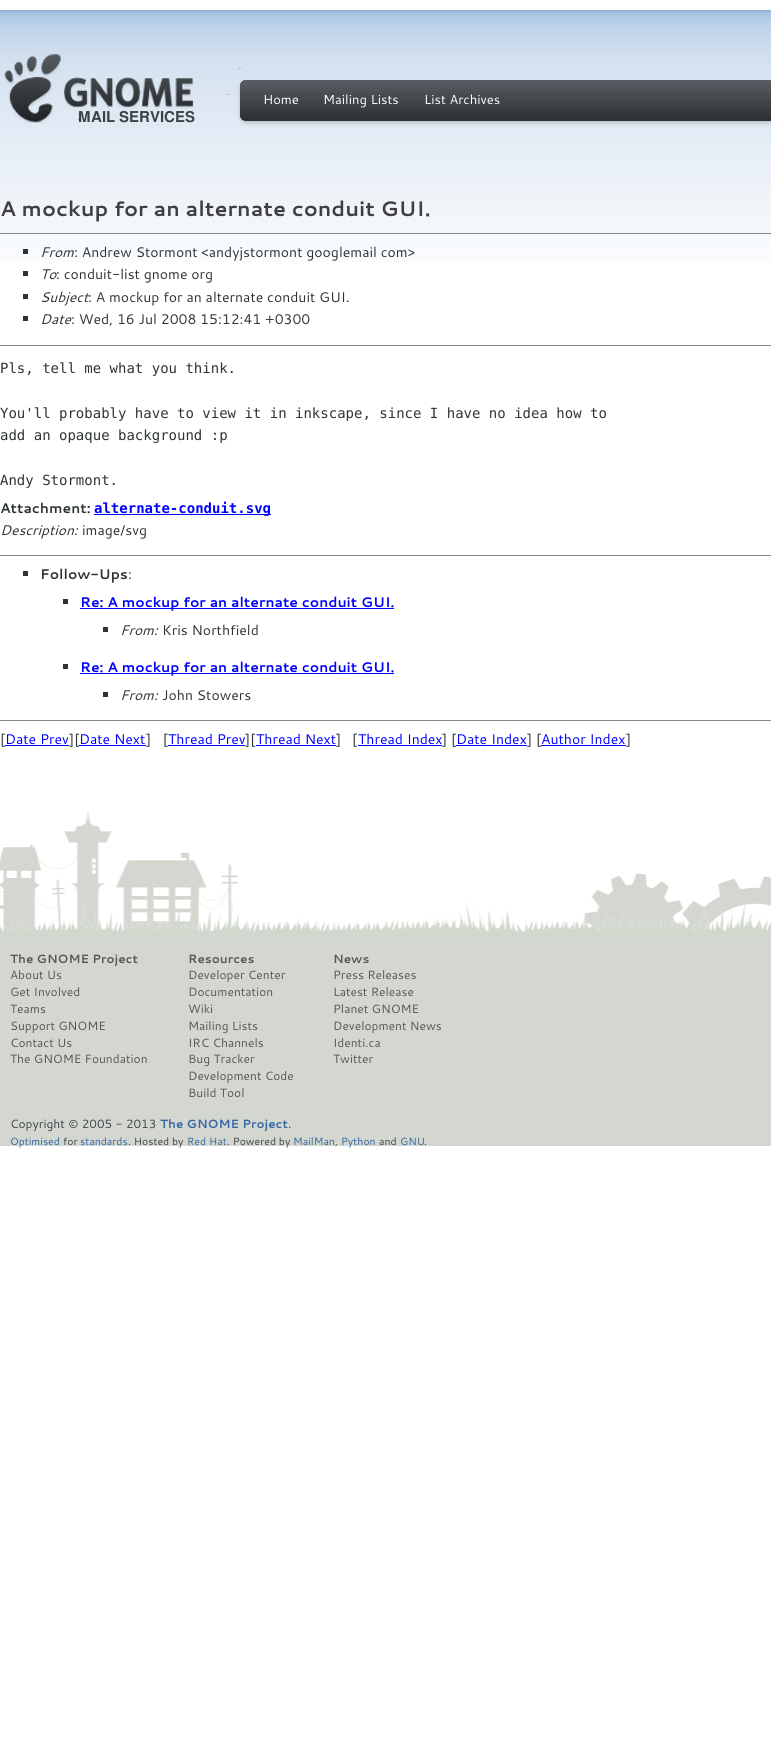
#include <cairo.h>
#include <math.h>
#include <stddef.h>


static void round_rect(cairo_t *cr, double x, double y, double w, double h, double r) {
    cairo_new_sub_path(cr);
    cairo_arc(cr, x + w - r, y + h - r, r, 0, M_PI / 2);
    cairo_arc(cr, x + r, y + h - r, r, M_PI / 2, M_PI);
    cairo_arc(cr, x + r, y + r, r, M_PI, 1.5 * M_PI);
    cairo_arc(cr, x + w - r, y + r, r, 1.5 * M_PI, 2 * M_PI);
    cairo_close_path(cr);
}

static void shadow(cairo_t *cr, double x, double y, double w, double h, double r, double blur, double alpha) {
    cairo_push_group_with_content(cr, CAIRO_CONTENT_ALPHA);
    cairo_set_operator(cr, CAIRO_OPERATOR_SOURCE);
    for (int i = 15; i >= -15 && fmin(w, h) + blur * i / 3 > 0; i -= 2) {
        double e = blur * i / 6;
        cairo_set_source_rgba(cr, 0, 0, 0, alpha * erfc((i - 1) / 8.5) / 2);
        round_rect(cr, x - e, y - e, w + 2 * e, h + 2 * e, fmax(0, fmin(r + e + blur * .6, fmin(w, h) / 2 + e)));
        cairo_fill(cr);
    }
    cairo_pattern_t *soft = cairo_pop_group(cr);
    cairo_mask(cr, soft);
    cairo_pattern_destroy(soft);
}

static void picture(cairo_t *cr, const char *path, double x, double y, double w, double h) {
    cairo_surface_t *image = cairo_image_surface_create_from_png(path);
    cairo_save(cr);
    cairo_set_source_surface(cr, image, x, y);
    cairo_rectangle(cr, x, y, w, h);
    cairo_fill(cr);
    cairo_restore(cr);
    cairo_surface_destroy(image);
}

int main(void) {
    cairo_surface_t *surface = cairo_image_surface_create(CAIRO_FORMAT_RGB24, 771, 1742);
    cairo_t *cr = cairo_create(surface);
    cairo_font_options_t *options = cairo_font_options_create();
    cairo_font_options_set_hint_metrics(options, CAIRO_HINT_METRICS_OFF);
    cairo_font_options_set_hint_style(options, CAIRO_HINT_STYLE_NONE);
    cairo_set_font_options(cr, options);
    cairo_set_miter_limit(cr, 4);
    cairo_set_source_rgb(cr, 1, 1, 1);
    cairo_paint(cr);
    picture(cr, "img1.png", 0, 10, 771, 252);
    picture(cr, "img2.png", 4, 54, 238, 69);
    cairo_set_source_rgb(cr, 0, 0, 0);
    shadow(cr, 240, 82, 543, 41, 6, 2, 0.2);
    cairo_set_source_rgb(cr, 0.18, 0.204, 0.212);
    round_rect(cr, 240, 80, 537, 41, 6);
    cairo_fill(cr);
    picture(cr, "img3.png", 240, 80, 531, 40);
    cairo_select_font_face(cr, "Cantarell", CAIRO_FONT_SLANT_NORMAL, CAIRO_FONT_WEIGHT_NORMAL);
    cairo_set_font_size(cr, 13);
    cairo_set_source_rgb(cr, 1, 1, 1);
    cairo_move_to(cr, 263, 104);
    cairo_show_text(cr, "Home");
    cairo_move_to(cr, 323, 104);
    cairo_show_text(cr, "Mailing Lists");
    cairo_move_to(cr, 424, 104);
    cairo_show_text(cr, "List Archives");
    cairo_select_font_face(cr, "Cantarell", CAIRO_FONT_SLANT_NORMAL, CAIRO_FONT_WEIGHT_BOLD);
    cairo_set_font_size(cr, 21);
    cairo_set_source_rgb(cr, 0.247, 0.247, 0.247);
    cairo_move_to(cr, 0, 216);
    cairo_show_text(cr, "A mockup for an alternate conduit GUI.");
    cairo_set_source_rgb(cr, 0.533, 0.533, 0.533);
    cairo_rectangle(cr, 0, 233, 771, 1);
    cairo_fill(cr);
    cairo_set_source_rgb(cr, 0.18, 0.204, 0.212);
    cairo_rectangle(cr, 23, 249, 5, 5);
    cairo_fill(cr);
    cairo_select_font_face(cr, "Cantarell", CAIRO_FONT_SLANT_ITALIC, CAIRO_FONT_WEIGHT_NORMAL);
    cairo_set_font_size(cr, 14);
    cairo_move_to(cr, 40, 257);
    cairo_show_text(cr, "From");
    cairo_select_font_face(cr, "Cantarell", CAIRO_FONT_SLANT_NORMAL, CAIRO_FONT_WEIGHT_NORMAL);
    cairo_move_to(cr, 74, 257);
    cairo_show_text(cr, ": Andrew Stormont <andyjstormont googlemail com>");
    cairo_rectangle(cr, 23, 271, 5, 5);
    cairo_fill(cr);
    cairo_select_font_face(cr, "Cantarell", CAIRO_FONT_SLANT_ITALIC, CAIRO_FONT_WEIGHT_NORMAL);
    cairo_move_to(cr, 40, 279);
    cairo_show_text(cr, "To");
    cairo_select_font_face(cr, "Cantarell", CAIRO_FONT_SLANT_NORMAL, CAIRO_FONT_WEIGHT_NORMAL);
    cairo_move_to(cr, 56, 279);
    cairo_show_text(cr, ": conduit-list gnome org");
    cairo_rectangle(cr, 23, 294, 5, 5);
    cairo_fill(cr);
    cairo_select_font_face(cr, "Cantarell", CAIRO_FONT_SLANT_ITALIC, CAIRO_FONT_WEIGHT_NORMAL);
    cairo_move_to(cr, 40, 302);
    cairo_show_text(cr, "Subject");
    cairo_select_font_face(cr, "Cantarell", CAIRO_FONT_SLANT_NORMAL, CAIRO_FONT_WEIGHT_NORMAL);
    cairo_move_to(cr, 88, 302);
    cairo_show_text(cr, ": A mockup for an alternate conduit GUI.");
    cairo_rectangle(cr, 23, 316, 5, 5);
    cairo_fill(cr);
    cairo_select_font_face(cr, "Cantarell", CAIRO_FONT_SLANT_ITALIC, CAIRO_FONT_WEIGHT_NORMAL);
    cairo_move_to(cr, 40, 324);
    cairo_show_text(cr, "Date");
    cairo_select_font_face(cr, "Cantarell", CAIRO_FONT_SLANT_NORMAL, CAIRO_FONT_WEIGHT_NORMAL);
    cairo_move_to(cr, 71, 324);
    cairo_show_text(cr, ": Wed, 16 Jul 2008 15:12:41 +0300");
    cairo_set_source_rgb(cr, 0.533, 0.533, 0.533);
    cairo_rectangle(cr, 0, 345, 771, 1);
    cairo_fill(cr);
    cairo_select_font_face(cr, "DejaVu Sans Mono", CAIRO_FONT_SLANT_NORMAL, CAIRO_FONT_WEIGHT_NORMAL);
    cairo_set_source_rgb(cr, 0.18, 0.204, 0.212);
    cairo_move_to(cr, 0, 373);
    cairo_show_text(cr, "Pls, tell me what you think.");
    cairo_move_to(cr, 0, 418);
    cairo_show_text(cr, "You'll probably have to view it in inkscape, since I have no idea how to");
    cairo_move_to(cr, 0, 440);
    cairo_show_text(cr, "add an opaque background :p");
    cairo_move_to(cr, 0, 485);
    cairo_show_text(cr, "Andy Stormont.");
    cairo_select_font_face(cr, "Cantarell", CAIRO_FONT_SLANT_NORMAL, CAIRO_FONT_WEIGHT_BOLD);
    cairo_move_to(cr, 0, 513);
    cairo_show_text(cr, "Attachment:");
    cairo_set_source_rgb(cr, 0, 0, 1);
    cairo_rectangle(cr, 94, 514, 177, 1);
    cairo_fill(cr);
    cairo_select_font_face(cr, "DejaVu Sans Mono", CAIRO_FONT_SLANT_NORMAL, CAIRO_FONT_WEIGHT_BOLD);
    cairo_move_to(cr, 94, 513);
    cairo_show_text(cr, "alternate-conduit.svg");
    cairo_select_font_face(cr, "Cantarell", CAIRO_FONT_SLANT_ITALIC, CAIRO_FONT_WEIGHT_NORMAL);
    cairo_set_source_rgb(cr, 0.18, 0.204, 0.212);
    cairo_move_to(cr, 0, 535);
    cairo_show_text(cr, "Description:");
    cairo_select_font_face(cr, "Cantarell", CAIRO_FONT_SLANT_NORMAL, CAIRO_FONT_WEIGHT_NORMAL);
    cairo_move_to(cr, 82, 535);
    cairo_show_text(cr, "image/svg");
    cairo_set_source_rgb(cr, 0.533, 0.533, 0.533);
    cairo_rectangle(cr, 0, 555, 771, 1);
    cairo_fill(cr);
    cairo_set_source_rgb(cr, 0.18, 0.204, 0.212);
    cairo_rectangle(cr, 23, 571, 5, 5);
    cairo_fill(cr);
    cairo_select_font_face(cr, "Cantarell", CAIRO_FONT_SLANT_NORMAL, CAIRO_FONT_WEIGHT_BOLD);
    cairo_move_to(cr, 40, 579);
    cairo_show_text(cr, "Follow-Ups");
    cairo_select_font_face(cr, "Cantarell", CAIRO_FONT_SLANT_NORMAL, CAIRO_FONT_WEIGHT_NORMAL);
    cairo_move_to(cr, 128, 579);
    cairo_show_text(cr, ":");
    cairo_rectangle(cr, 63, 599, 5, 5);
    cairo_fill(cr);
    cairo_set_source_rgb(cr, 0, 0, 1);
    cairo_rectangle(cr, 80, 608, 314, 1);
    cairo_fill(cr);
    cairo_select_font_face(cr, "Cantarell", CAIRO_FONT_SLANT_NORMAL, CAIRO_FONT_WEIGHT_BOLD);
    cairo_move_to(cr, 80, 607);
    cairo_show_text(cr, "Re: A mockup for an alternate conduit GUI.");
    cairo_set_source_rgb(cr, 0.18, 0.204, 0.212);
    cairo_rectangle(cr, 103, 627, 5, 5);
    cairo_fill(cr);
    cairo_select_font_face(cr, "Cantarell", CAIRO_FONT_SLANT_ITALIC, CAIRO_FONT_WEIGHT_NORMAL);
    cairo_move_to(cr, 120, 635);
    cairo_show_text(cr, "From:");
    cairo_select_font_face(cr, "Cantarell", CAIRO_FONT_SLANT_NORMAL, CAIRO_FONT_WEIGHT_NORMAL);
    cairo_move_to(cr, 162, 635);
    cairo_show_text(cr, "Kris Northfield");
    cairo_rectangle(cr, 63, 664, 5, 5);
    cairo_fill(cr);
    cairo_set_source_rgb(cr, 0, 0, 1);
    cairo_rectangle(cr, 80, 673, 314, 1);
    cairo_fill(cr);
    cairo_select_font_face(cr, "Cantarell", CAIRO_FONT_SLANT_NORMAL, CAIRO_FONT_WEIGHT_BOLD);
    cairo_move_to(cr, 80, 672);
    cairo_show_text(cr, "Re: A mockup for an alternate conduit GUI.");
    cairo_set_source_rgb(cr, 0.18, 0.204, 0.212);
    cairo_rectangle(cr, 103, 692, 5, 5);
    cairo_fill(cr);
    cairo_select_font_face(cr, "Cantarell", CAIRO_FONT_SLANT_ITALIC, CAIRO_FONT_WEIGHT_NORMAL);
    cairo_move_to(cr, 120, 700);
    cairo_show_text(cr, "From:");
    cairo_select_font_face(cr, "Cantarell", CAIRO_FONT_SLANT_NORMAL, CAIRO_FONT_WEIGHT_NORMAL);
    cairo_move_to(cr, 162, 700);
    cairo_show_text(cr, "John Stowers");
    cairo_set_source_rgb(cr, 0.533, 0.533, 0.533);
    cairo_rectangle(cr, 0, 720, 771, 1);
    cairo_fill(cr);
    cairo_set_source_rgb(cr, 0.18, 0.204, 0.212);
    cairo_move_to(cr, 0, 744);
    cairo_show_text(cr, "[");
    cairo_set_source_rgb(cr, 0, 0, 1);
    cairo_move_to(cr, 5, 744);
    cairo_show_text(cr, "Date Prev");
    cairo_rectangle(cr, 5, 745, 64, 1);
    cairo_fill(cr);
    cairo_set_source_rgb(cr, 0.18, 0.204, 0.212);
    cairo_move_to(cr, 69, 744);
    cairo_show_text(cr, "][");
    cairo_set_source_rgb(cr, 0, 0, 1);
    cairo_move_to(cr, 79, 744);
    cairo_show_text(cr, "Date Next");
    cairo_rectangle(cr, 79, 745, 67, 1);
    cairo_fill(cr);
    cairo_set_source_rgb(cr, 0.18, 0.204, 0.212);
    cairo_move_to(cr, 146, 744);
    cairo_show_text(cr, "]   [");
    cairo_set_source_rgb(cr, 0, 0, 1);
    cairo_move_to(cr, 168, 744);
    cairo_show_text(cr, "Thread Prev");
    cairo_rectangle(cr, 168, 745, 77, 1);
    cairo_fill(cr);
    cairo_set_source_rgb(cr, 0.18, 0.204, 0.212);
    cairo_move_to(cr, 245, 744);
    cairo_show_text(cr, "][");
    cairo_set_source_rgb(cr, 0, 0, 1);
    cairo_move_to(cr, 256, 744);
    cairo_show_text(cr, "Thread Next");
    cairo_rectangle(cr, 256, 745, 80, 1);
    cairo_fill(cr);
    cairo_set_source_rgb(cr, 0.18, 0.204, 0.212);
    cairo_move_to(cr, 336, 744);
    cairo_show_text(cr, "]");
    cairo_move_to(cr, 352, 744);
    cairo_show_text(cr, "[");
    cairo_set_source_rgb(cr, 0, 0, 1);
    cairo_move_to(cr, 358, 744);
    cairo_show_text(cr, "Thread Index");
    cairo_rectangle(cr, 358, 745, 84, 1);
    cairo_fill(cr);
    cairo_set_source_rgb(cr, 0.18, 0.204, 0.212);
    cairo_move_to(cr, 442, 744);
    cairo_show_text(cr, "] [");
    cairo_set_source_rgb(cr, 0, 0, 1);
    cairo_move_to(cr, 456, 744);
    cairo_show_text(cr, "Date Index");
    cairo_rectangle(cr, 456, 745, 71, 1);
    cairo_fill(cr);
    cairo_set_source_rgb(cr, 0.18, 0.204, 0.212);
    cairo_move_to(cr, 527, 744);
    cairo_show_text(cr, "] [");
    cairo_set_source_rgb(cr, 0, 0, 1);
    cairo_move_to(cr, 541, 744);
    cairo_show_text(cr, "Author Index");
    cairo_rectangle(cr, 541, 745, 85, 1);
    cairo_fill(cr);
    cairo_set_source_rgb(cr, 0.18, 0.204, 0.212);
    cairo_move_to(cr, 626, 744);
    cairo_show_text(cr, "]");
    picture(cr, "img4.png", 0, 811, 771, 120);
    picture(cr, "img5.png", 0, 900, 771, 37);
    cairo_set_source_rgb(cr, 0.827, 0.843, 0.812);
    cairo_rectangle(cr, 0, 937, 771, 209);
    cairo_fill(cr);
    cairo_select_font_face(cr, "Cantarell", CAIRO_FONT_SLANT_NORMAL, CAIRO_FONT_WEIGHT_BOLD);
    cairo_set_font_size(cr, 12);
    cairo_set_source_rgb(cr, 0.333, 0.341, 0.325);
    cairo_move_to(cr, 10, 963);
    cairo_show_text(cr, "The GNOME Project");
    cairo_select_font_face(cr, "Cantarell", CAIRO_FONT_SLANT_NORMAL, CAIRO_FONT_WEIGHT_NORMAL);
    cairo_move_to(cr, 10, 979);
    cairo_show_text(cr, "About Us");
    cairo_move_to(cr, 10, 996);
    cairo_show_text(cr, "Get Involved");
    cairo_move_to(cr, 10, 1013);
    cairo_show_text(cr, "Teams");
    cairo_move_to(cr, 10, 1030);
    cairo_show_text(cr, "Support GNOME");
    cairo_move_to(cr, 10, 1047);
    cairo_show_text(cr, "Contact Us");
    cairo_move_to(cr, 10, 1063);
    cairo_show_text(cr, "The GNOME Foundation");
    cairo_select_font_face(cr, "Cantarell", CAIRO_FONT_SLANT_NORMAL, CAIRO_FONT_WEIGHT_BOLD);
    cairo_move_to(cr, 188, 963);
    cairo_show_text(cr, "Resources");
    cairo_select_font_face(cr, "Cantarell", CAIRO_FONT_SLANT_NORMAL, CAIRO_FONT_WEIGHT_NORMAL);
    cairo_move_to(cr, 188, 979);
    cairo_show_text(cr, "Developer Center");
    cairo_move_to(cr, 188, 996);
    cairo_show_text(cr, "Documentation");
    cairo_move_to(cr, 188, 1013);
    cairo_show_text(cr, "Wiki");
    cairo_move_to(cr, 188, 1030);
    cairo_show_text(cr, "Mailing Lists");
    cairo_move_to(cr, 188, 1047);
    cairo_show_text(cr, "IRC Channels");
    cairo_move_to(cr, 188, 1063);
    cairo_show_text(cr, "Bug Tracker");
    cairo_move_to(cr, 188, 1080);
    cairo_show_text(cr, "Development Code");
    cairo_move_to(cr, 188, 1097);
    cairo_show_text(cr, "Build Tool");
    cairo_select_font_face(cr, "Cantarell", CAIRO_FONT_SLANT_NORMAL, CAIRO_FONT_WEIGHT_BOLD);
    cairo_move_to(cr, 333, 963);
    cairo_show_text(cr, "News");
    cairo_select_font_face(cr, "Cantarell", CAIRO_FONT_SLANT_NORMAL, CAIRO_FONT_WEIGHT_NORMAL);
    cairo_move_to(cr, 333, 979);
    cairo_show_text(cr, "Press Releases");
    cairo_move_to(cr, 333, 996);
    cairo_show_text(cr, "Latest Release");
    cairo_move_to(cr, 333, 1013);
    cairo_show_text(cr, "Planet GNOME");
    cairo_move_to(cr, 333, 1030);
    cairo_show_text(cr, "Development News");
    cairo_move_to(cr, 333, 1047);
    cairo_show_text(cr, "Identi.ca");
    cairo_move_to(cr, 333, 1063);
    cairo_show_text(cr, "Twitter");
    cairo_set_source_rgb(cr, 0.247, 0.267, 0.282);
    cairo_move_to(cr, 10, 1128);
    cairo_show_text(cr, "Copyright © 2005 - 2013");
    cairo_select_font_face(cr, "Cantarell", CAIRO_FONT_SLANT_NORMAL, CAIRO_FONT_WEIGHT_BOLD);
    cairo_set_source_rgb(cr, 0.204, 0.396, 0.643);
    cairo_move_to(cr, 160, 1128);
    cairo_show_text(cr, "The GNOME Project");
    cairo_select_font_face(cr, "Cantarell", CAIRO_FONT_SLANT_NORMAL, CAIRO_FONT_WEIGHT_NORMAL);
    cairo_set_source_rgb(cr, 0.247, 0.267, 0.282);
    cairo_move_to(cr, 288, 1128);
    cairo_show_text(cr, ".");
    cairo_set_font_size(cr, 10.5);
    cairo_set_source_rgb(cr, 0.204, 0.396, 0.643);
    cairo_move_to(cr, 10, 1145);
    cairo_show_text(cr, "Optimised");
    cairo_set_source_rgb(cr, 0.247, 0.267, 0.282);
    cairo_move_to(cr, 63, 1145);
    cairo_show_text(cr, "for");
    cairo_set_source_rgb(cr, 0.204, 0.396, 0.643);
    cairo_move_to(cr, 80, 1145);
    cairo_show_text(cr, "standards");
    cairo_set_source_rgb(cr, 0.247, 0.267, 0.282);
    cairo_move_to(cr, 128, 1145);
    cairo_show_text(cr, ". Hosted by");
    cairo_set_source_rgb(cr, 0.204, 0.396, 0.643);
    cairo_move_to(cr, 187, 1145);
    cairo_show_text(cr, "Red Hat");
    cairo_set_source_rgb(cr, 0.247, 0.267, 0.282);
    cairo_move_to(cr, 227, 1145);
    cairo_show_text(cr, ". Powered by");
    cairo_set_source_rgb(cr, 0.204, 0.396, 0.643);
    cairo_move_to(cr, 293, 1145);
    cairo_show_text(cr, "MailMan");
    cairo_set_source_rgb(cr, 0.247, 0.267, 0.282);
    cairo_move_to(cr, 335, 1145);
    cairo_show_text(cr, ",");
    cairo_set_source_rgb(cr, 0.204, 0.396, 0.643);
    cairo_move_to(cr, 341, 1145);
    cairo_show_text(cr, "Python");
    cairo_set_source_rgb(cr, 0.247, 0.267, 0.282);
    cairo_move_to(cr, 379, 1145);
    cairo_show_text(cr, "and");
    cairo_set_source_rgb(cr, 0.204, 0.396, 0.643);
    cairo_move_to(cr, 400, 1145);
    cairo_show_text(cr, "GNU");
    cairo_set_source_rgb(cr, 0.247, 0.267, 0.282);
    cairo_move_to(cr, 424, 1145);
    cairo_show_text(cr, ".");
    cairo_surface_write_to_png(surface, "page.png");
    cairo_font_options_destroy(options);
    cairo_destroy(cr);
    cairo_surface_destroy(surface);
    return 0;
}
